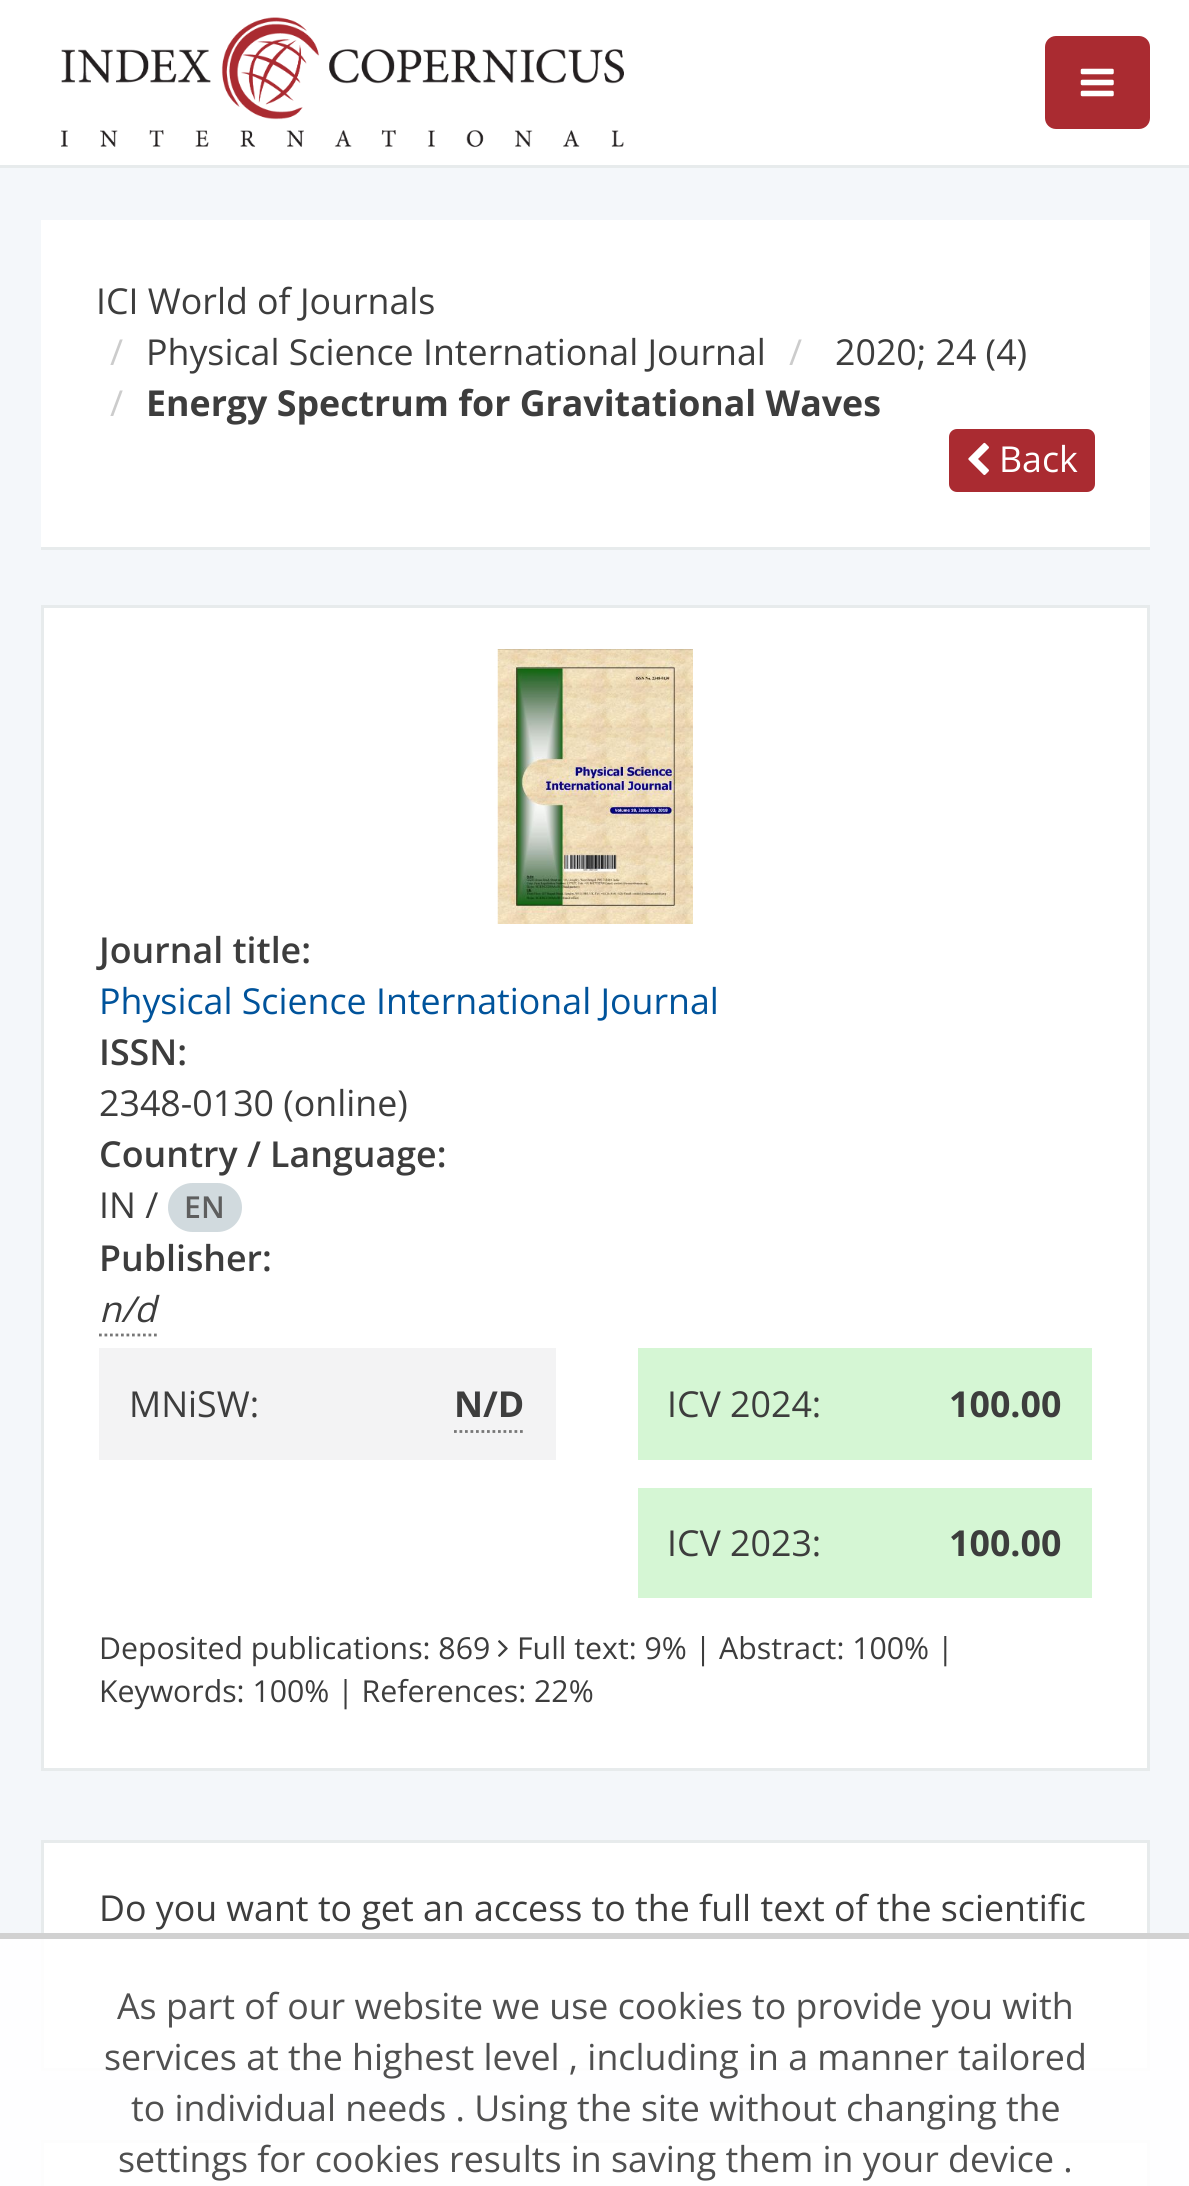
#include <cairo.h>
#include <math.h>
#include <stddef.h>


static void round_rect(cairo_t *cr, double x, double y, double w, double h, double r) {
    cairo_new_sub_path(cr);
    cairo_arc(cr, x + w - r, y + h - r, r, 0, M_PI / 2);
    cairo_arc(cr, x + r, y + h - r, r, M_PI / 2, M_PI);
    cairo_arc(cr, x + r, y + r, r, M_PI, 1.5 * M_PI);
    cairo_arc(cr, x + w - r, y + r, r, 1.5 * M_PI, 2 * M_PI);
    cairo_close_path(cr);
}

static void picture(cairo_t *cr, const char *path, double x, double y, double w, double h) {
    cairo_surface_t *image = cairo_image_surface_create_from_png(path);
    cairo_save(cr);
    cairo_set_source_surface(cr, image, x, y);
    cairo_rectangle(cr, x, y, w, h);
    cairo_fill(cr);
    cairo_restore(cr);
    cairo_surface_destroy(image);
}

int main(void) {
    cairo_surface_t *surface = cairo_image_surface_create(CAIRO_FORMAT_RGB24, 1189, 2186);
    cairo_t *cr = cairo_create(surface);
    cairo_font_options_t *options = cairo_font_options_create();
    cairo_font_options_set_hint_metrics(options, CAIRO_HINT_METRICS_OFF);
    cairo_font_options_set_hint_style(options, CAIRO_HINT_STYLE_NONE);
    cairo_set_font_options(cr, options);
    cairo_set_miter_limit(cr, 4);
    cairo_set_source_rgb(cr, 0.957, 0.965, 0.98);
    cairo_paint(cr);
    cairo_set_source_rgb(cr, 1, 1, 1);
    cairo_rectangle(cr, 0, 0, 1189, 165);
    cairo_fill(cr);
    cairo_set_source_rgb(cr, 0.906, 0.918, 0.925);
    cairo_rectangle(cr, 0, 165, 1189, 3);
    cairo_fill(cr);
    picture(cr, "img1.png", 61, 17, 563, 131);
    cairo_set_source_rgb(cr, 0.667, 0.169, 0.192);
    round_rect(cr, 1045, 36, 105, 93, 11);
    cairo_fill(cr);
    picture(cr, "img2.png", 1080, 68, 34, 29);
    cairo_set_source_rgb(cr, 1, 1, 1);
    cairo_rectangle(cr, 41, 220, 1109, 327);
    cairo_fill(cr);
    cairo_set_source_rgb(cr, 0.906, 0.918, 0.925);
    cairo_rectangle(cr, 41, 547, 1109, 3);
    cairo_fill(cr);
    cairo_select_font_face(cr, "Open Sans", CAIRO_FONT_SLANT_NORMAL, CAIRO_FONT_WEIGHT_NORMAL);
    cairo_set_font_size(cr, 35.75);
    cairo_set_source_rgb(cr, 0.239, 0.239, 0.239);
    cairo_move_to(cr, 96, 314);
    cairo_show_text(cr, "ICI World of Journals");
    cairo_set_source_rgb(cr, 0.8, 0.8, 0.8);
    cairo_move_to(cr, 110, 365);
    cairo_show_text(cr, "/");
    cairo_set_source_rgb(cr, 0.239, 0.239, 0.239);
    cairo_move_to(cr, 146, 365);
    cairo_show_text(cr, "Physical Science International Journal");
    cairo_set_source_rgb(cr, 0.8, 0.8, 0.8);
    cairo_move_to(cr, 789, 365);
    cairo_show_text(cr, "/");
    cairo_set_source_rgb(cr, 0.239, 0.239, 0.239);
    cairo_move_to(cr, 835, 365);
    cairo_show_text(cr, "2020; 24 (4)");
    cairo_set_source_rgb(cr, 0.8, 0.8, 0.8);
    cairo_move_to(cr, 110, 416);
    cairo_show_text(cr, "/");
    cairo_select_font_face(cr, "Open Sans", CAIRO_FONT_SLANT_NORMAL, CAIRO_FONT_WEIGHT_BOLD);
    cairo_set_source_rgb(cr, 0.239, 0.239, 0.239);
    cairo_move_to(cr, 146, 416);
    cairo_show_text(cr, "Energy Spectrum for Gravitational Waves");
    cairo_set_source_rgb(cr, 0.667, 0.169, 0.192);
    round_rect(cr, 950.5, 430.5, 143, 60, 6.5);
    cairo_fill_preserve(cr);
    cairo_set_line_width(cr, 3);
    cairo_stroke(cr);
    picture(cr, "img3.png", 968, 442, 21, 33);
    cairo_select_font_face(cr, "Open Sans", CAIRO_FONT_SLANT_NORMAL, CAIRO_FONT_WEIGHT_NORMAL);
    cairo_set_source_rgb(cr, 1, 1, 1);
    cairo_move_to(cr, 999, 472);
    cairo_show_text(cr, "Back");
    cairo_rectangle(cr, 42.5, 606.5, 1106, 1163);
    cairo_fill_preserve(cr);
    cairo_set_source_rgb(cr, 0.906, 0.918, 0.925);
    cairo_stroke(cr);
    picture(cr, "img4.png", 497, 649, 196, 275);
    cairo_select_font_face(cr, "Open Sans SemiBold", CAIRO_FONT_SLANT_NORMAL, CAIRO_FONT_WEIGHT_NORMAL);
    cairo_set_source_rgb(cr, 0.239, 0.239, 0.239);
    cairo_move_to(cr, 99, 963);
    cairo_show_text(cr, "Journal title:");
    cairo_select_font_face(cr, "Open Sans", CAIRO_FONT_SLANT_NORMAL, CAIRO_FONT_WEIGHT_NORMAL);
    cairo_set_source_rgb(cr, 0, 0.325, 0.608);
    cairo_move_to(cr, 99, 1014);
    cairo_show_text(cr, "Physical Science International Journal");
    cairo_select_font_face(cr, "Open Sans SemiBold", CAIRO_FONT_SLANT_NORMAL, CAIRO_FONT_WEIGHT_NORMAL);
    cairo_set_source_rgb(cr, 0.239, 0.239, 0.239);
    cairo_move_to(cr, 99, 1065);
    cairo_show_text(cr, "ISSN:");
    cairo_select_font_face(cr, "Open Sans", CAIRO_FONT_SLANT_NORMAL, CAIRO_FONT_WEIGHT_NORMAL);
    cairo_move_to(cr, 99, 1116);
    cairo_show_text(cr, "2348-0130 (online)");
    cairo_select_font_face(cr, "Open Sans SemiBold", CAIRO_FONT_SLANT_NORMAL, CAIRO_FONT_WEIGHT_NORMAL);
    cairo_move_to(cr, 99, 1167);
    cairo_show_text(cr, "Country / Language:");
    cairo_select_font_face(cr, "Open Sans", CAIRO_FONT_SLANT_NORMAL, CAIRO_FONT_WEIGHT_NORMAL);
    cairo_move_to(cr, 99, 1218);
    cairo_show_text(cr, "IN /");
    cairo_set_source_rgb(cr, 0.82, 0.855, 0.871);
    round_rect(cr, 168, 1183, 74, 49, 24.5);
    cairo_fill(cr);
    cairo_select_font_face(cr, "Open Sans SemiBold", CAIRO_FONT_SLANT_NORMAL, CAIRO_FONT_WEIGHT_NORMAL);
    cairo_set_font_size(cr, 30.25);
    cairo_set_source_rgb(cr, 0.369, 0.369, 0.369);
    cairo_move_to(cr, 184, 1218);
    cairo_show_text(cr, "EN");
    cairo_set_font_size(cr, 35.75);
    cairo_set_source_rgb(cr, 0.239, 0.239, 0.239);
    cairo_move_to(cr, 99, 1271);
    cairo_show_text(cr, "Publisher:");
    cairo_select_font_face(cr, "Open Sans", CAIRO_FONT_SLANT_ITALIC, CAIRO_FONT_WEIGHT_NORMAL);
    cairo_move_to(cr, 99, 1322);
    cairo_show_text(cr, "n/d");
    cairo_new_path(cr);
    cairo_move_to(cr, 99, 1335);
    cairo_line_to(cr, 157, 1335);
    cairo_set_source_rgb(cr, 0.467, 0.467, 0.467);
    cairo_set_line_width(cr, 2.8);
    cairo_set_dash(cr, (double[]){2.75, 2.75}, 2, 0);
    cairo_stroke(cr);
    cairo_set_source_rgb(cr, 0.953, 0.953, 0.957);
    cairo_rectangle(cr, 99, 1348, 457, 112);
    cairo_fill(cr);
    cairo_select_font_face(cr, "Open Sans", CAIRO_FONT_SLANT_NORMAL, CAIRO_FONT_WEIGHT_NORMAL);
    cairo_set_source_rgb(cr, 0.239, 0.239, 0.239);
    cairo_move_to(cr, 129, 1417);
    cairo_show_text(cr, "MNiSW:");
    cairo_new_path(cr);
    cairo_move_to(cr, 454, 1431.5);
    cairo_line_to(cr, 525, 1431.5);
    cairo_set_source_rgb(cr, 0.467, 0.467, 0.467);
    cairo_stroke(cr);
    cairo_select_font_face(cr, "Open Sans", CAIRO_FONT_SLANT_NORMAL, CAIRO_FONT_WEIGHT_BOLD);
    cairo_set_source_rgb(cr, 0.239, 0.239, 0.239);
    cairo_move_to(cr, 454, 1417);
    cairo_show_text(cr, "N/D");
    cairo_set_source_rgb(cr, 0.835, 0.961, 0.831);
    cairo_rectangle(cr, 638, 1348, 454, 112);
    cairo_fill(cr);
    cairo_select_font_face(cr, "Open Sans", CAIRO_FONT_SLANT_NORMAL, CAIRO_FONT_WEIGHT_NORMAL);
    cairo_set_source_rgb(cr, 0.239, 0.239, 0.239);
    cairo_move_to(cr, 667, 1417);
    cairo_show_text(cr, "ICV 2024:");
    cairo_select_font_face(cr, "Open Sans", CAIRO_FONT_SLANT_NORMAL, CAIRO_FONT_WEIGHT_BOLD);
    cairo_move_to(cr, 949, 1417);
    cairo_show_text(cr, "100.00");
    cairo_set_source_rgb(cr, 0.835, 0.961, 0.831);
    cairo_rectangle(cr, 638, 1488, 454, 110);
    cairo_fill(cr);
    cairo_select_font_face(cr, "Open Sans", CAIRO_FONT_SLANT_NORMAL, CAIRO_FONT_WEIGHT_NORMAL);
    cairo_set_source_rgb(cr, 0.239, 0.239, 0.239);
    cairo_move_to(cr, 667, 1556);
    cairo_show_text(cr, "ICV 2023:");
    cairo_select_font_face(cr, "Open Sans", CAIRO_FONT_SLANT_NORMAL, CAIRO_FONT_WEIGHT_BOLD);
    cairo_move_to(cr, 949, 1556);
    cairo_show_text(cr, "100.00");
    cairo_select_font_face(cr, "Open Sans", CAIRO_FONT_SLANT_NORMAL, CAIRO_FONT_WEIGHT_NORMAL);
    cairo_set_font_size(cr, 30.25);
    cairo_move_to(cr, 99, 1659);
    cairo_show_text(cr, "Deposited publications: 869");
    picture(cr, "img5.png", 498, 1640, 10, 17);
    cairo_move_to(cr, 517, 1659);
    cairo_show_text(cr, "Full text: 9% | Abstract: 100% |");
    cairo_move_to(cr, 99, 1702);
    cairo_show_text(cr, "Keywords: 100% | References: 22%");
    cairo_set_source_rgb(cr, 1, 1, 1);
    cairo_rectangle(cr, 42.5, 1841.5, 1106, 228);
    cairo_fill_preserve(cr);
    cairo_set_source_rgb(cr, 0.906, 0.918, 0.925);
    cairo_set_line_width(cr, 3);
    cairo_set_dash(cr, NULL, 0, 0);
    cairo_stroke(cr);
    cairo_set_font_size(cr, 35.75);
    cairo_set_source_rgb(cr, 0.239, 0.239, 0.239);
    cairo_move_to(cr, 99, 1921);
    cairo_show_text(cr, "Do you want to get an access to the full text of the scientific");
    cairo_set_source_rgb(cr, 1, 1, 1);
    cairo_rectangle(cr, 44, 2143, 1103, 43);
    cairo_fill(cr);
    cairo_set_source_rgb(cr, 0.906, 0.918, 0.925);
    cairo_rectangle(cr, 41, 2140, 1109, 3);
    cairo_fill(cr);
    cairo_rectangle(cr, 1147, 2140, 3, 46);
    cairo_fill(cr);
    cairo_rectangle(cr, 41, 2140, 3, 46);
    cairo_fill(cr);
    cairo_set_source_rgba(cr, 1, 1, 1, 0.9);
    cairo_rectangle(cr, 0, 1939, 1189, 247);
    cairo_fill(cr);
    cairo_set_source_rgb(cr, 0.82, 0.82, 0.82);
    cairo_rectangle(cr, 0, 1933, 1189, 6);
    cairo_fill(cr);
    cairo_set_source_rgb(cr, 0.314, 0.314, 0.314);
    cairo_move_to(cr, 117, 2019);
    cairo_show_text(cr, "As part of our website we use cookies to provide you with");
    cairo_move_to(cr, 104, 2070);
    cairo_show_text(cr, "services at the highest level , including in a manner tailored");
    cairo_move_to(cr, 131, 2121);
    cairo_show_text(cr, "to individual needs . Using the site without changing the");
    cairo_move_to(cr, 118, 2172);
    cairo_show_text(cr, "settings for cookies results in saving them in your device .");
    cairo_surface_write_to_png(surface, "page.png");
    cairo_font_options_destroy(options);
    cairo_destroy(cr);
    cairo_surface_destroy(surface);
    return 0;
}
